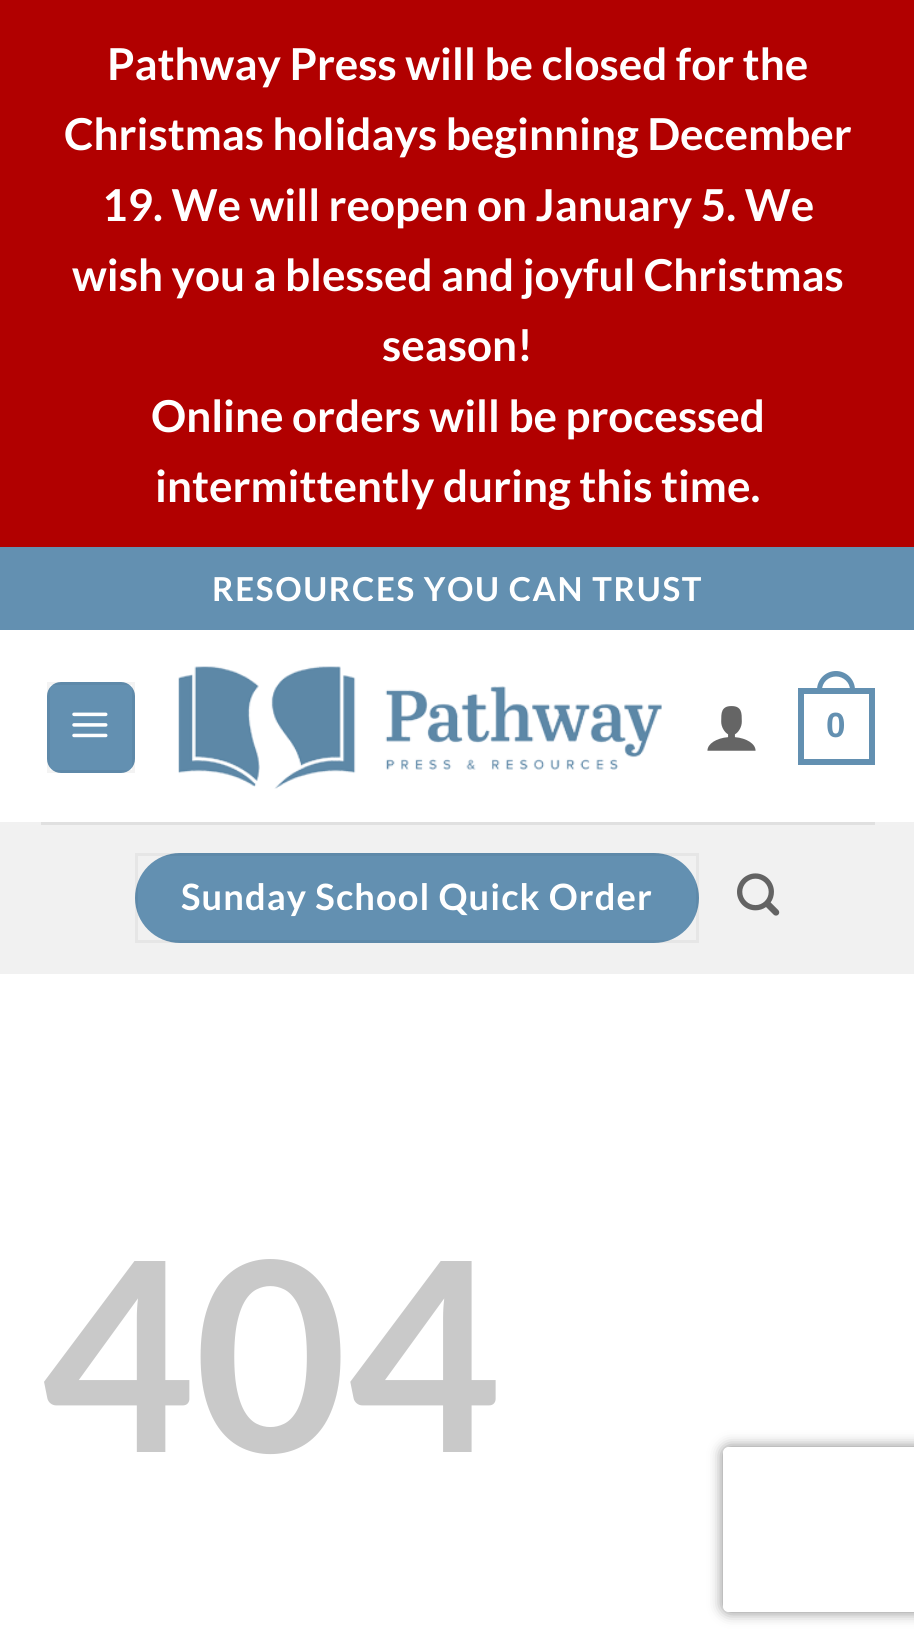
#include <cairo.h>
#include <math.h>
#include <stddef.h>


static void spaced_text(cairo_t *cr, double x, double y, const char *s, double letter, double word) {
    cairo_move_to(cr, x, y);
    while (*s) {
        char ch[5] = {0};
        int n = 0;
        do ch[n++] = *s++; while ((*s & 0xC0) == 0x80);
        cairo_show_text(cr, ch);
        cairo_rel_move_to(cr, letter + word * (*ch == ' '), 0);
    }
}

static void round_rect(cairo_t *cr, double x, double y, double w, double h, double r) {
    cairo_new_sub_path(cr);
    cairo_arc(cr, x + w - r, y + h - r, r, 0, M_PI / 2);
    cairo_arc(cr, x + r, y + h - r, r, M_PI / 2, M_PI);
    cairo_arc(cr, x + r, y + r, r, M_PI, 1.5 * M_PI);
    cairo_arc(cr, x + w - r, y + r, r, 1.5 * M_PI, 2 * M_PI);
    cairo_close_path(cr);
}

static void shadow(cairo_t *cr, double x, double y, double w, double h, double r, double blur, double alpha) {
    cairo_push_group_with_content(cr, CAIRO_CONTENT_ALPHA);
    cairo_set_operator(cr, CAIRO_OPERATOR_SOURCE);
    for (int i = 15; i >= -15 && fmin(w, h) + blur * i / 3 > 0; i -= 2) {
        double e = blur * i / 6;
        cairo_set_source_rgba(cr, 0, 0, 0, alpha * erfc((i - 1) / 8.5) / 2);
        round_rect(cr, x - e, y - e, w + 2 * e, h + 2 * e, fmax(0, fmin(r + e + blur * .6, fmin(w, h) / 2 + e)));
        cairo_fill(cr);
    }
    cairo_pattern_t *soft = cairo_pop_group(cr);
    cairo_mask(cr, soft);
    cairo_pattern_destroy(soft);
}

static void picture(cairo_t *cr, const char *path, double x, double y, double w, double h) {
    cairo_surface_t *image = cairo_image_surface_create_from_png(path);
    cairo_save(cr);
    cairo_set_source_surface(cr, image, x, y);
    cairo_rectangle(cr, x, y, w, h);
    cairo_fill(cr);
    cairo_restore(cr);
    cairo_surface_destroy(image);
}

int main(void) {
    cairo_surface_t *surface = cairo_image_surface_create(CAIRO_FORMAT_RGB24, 914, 1648);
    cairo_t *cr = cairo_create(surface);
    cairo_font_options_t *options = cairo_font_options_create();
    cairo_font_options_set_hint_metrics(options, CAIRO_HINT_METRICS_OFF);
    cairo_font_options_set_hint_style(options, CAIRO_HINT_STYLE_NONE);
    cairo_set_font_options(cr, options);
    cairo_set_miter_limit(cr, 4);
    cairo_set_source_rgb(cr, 1, 1, 1);
    cairo_paint(cr);
    cairo_set_source_rgb(cr, 0.694, 0, 0);
    cairo_rectangle(cr, 0, 0, 914, 547);
    cairo_fill(cr);
    cairo_select_font_face(cr, "Lato", CAIRO_FONT_SLANT_NORMAL, CAIRO_FONT_WEIGHT_BOLD);
    cairo_set_font_size(cr, 44);
    cairo_set_source_rgb(cr, 1, 1, 1);
    cairo_move_to(cr, 107, 80);
    cairo_show_text(cr, "Pathway Press will be closed for the");
    cairo_move_to(cr, 64, 150);
    cairo_show_text(cr, "Christmas holidays beginning December");
    cairo_move_to(cr, 102, 221);
    cairo_show_text(cr, "19. We will reopen on January 5. We");
    cairo_move_to(cr, 72, 291);
    cairo_show_text(cr, "wish you a blessed and joyful Christmas");
    cairo_move_to(cr, 382, 361);
    cairo_show_text(cr, "season!");
    cairo_move_to(cr, 151, 432);
    cairo_show_text(cr, "Online orders will be processed");
    cairo_move_to(cr, 155, 502);
    cairo_show_text(cr, "intermittently during this time.");
    cairo_set_source_rgb(cr, 0.388, 0.565, 0.694);
    cairo_rectangle(cr, 0, 547, 914, 83);
    cairo_fill(cr);
    cairo_set_font_size(cr, 33);
    cairo_set_source_rgb(cr, 1, 1, 1);
    spaced_text(cr, 212, 601, "RESOURCES YOU CAN TRUST", 1.65, 0);
    cairo_set_source_rgb(cr, 0.388, 0.565, 0.694);
    round_rect(cr, 47, 682, 88, 91, 14);
    cairo_fill(cr);
    cairo_rectangle(cr, 48.5, 683.5, 85, 88);
    cairo_set_source_rgba(cr, 0, 0, 0, 0.05);
    cairo_set_line_width(cr, 3);
    cairo_stroke(cr);
    picture(cr, "img1.png", 72, 712, 36, 26);
    picture(cr, "img2.png", 178, 666, 484, 123);
    picture(cr, "img3.png", 707, 706, 49, 45);
    cairo_rectangle(cr, 801, 691, 71, 71);
    cairo_set_source_rgb(cr, 0.388, 0.565, 0.694);
    cairo_set_line_width(cr, 6);
    cairo_stroke(cr);
    cairo_set_fill_rule(cr, CAIRO_FILL_RULE_EVEN_ODD);
    cairo_new_path(cr);
    cairo_move_to(cr, 836, 671);
    cairo_curve_to(cr, 846.5, 671, 855, 679.5, 855, 690);
    cairo_line_to(cr, 855, 693);
    cairo_line_to(cr, 817, 693);
    cairo_line_to(cr, 817, 690);
    cairo_curve_to(cr, 817, 679.5, 825.5, 671, 836, 671);
    cairo_close_path(cr);
    cairo_move_to(cr, 836, 676.5);
    cairo_curve_to(cr, 843.5, 676.5, 850, 682.5, 850, 690);
    cairo_line_to(cr, 850, 693);
    cairo_line_to(cr, 822, 693);
    cairo_line_to(cr, 822, 690);
    cairo_curve_to(cr, 822, 682.5, 828.5, 676.5, 836, 676.5);
    cairo_close_path(cr);
    cairo_fill(cr);
    cairo_select_font_face(cr, "Liberation Sans", CAIRO_FONT_SLANT_NORMAL, CAIRO_FONT_WEIGHT_BOLD);
    cairo_set_font_size(cr, 35);
    cairo_move_to(cr, 826, 737);
    cairo_show_text(cr, "0");
    cairo_set_source_rgb(cr, 0.945, 0.945, 0.945);
    cairo_rectangle(cr, 0, 822, 914, 152);
    cairo_fill(cr);
    cairo_set_source_rgb(cr, 0.878, 0.878, 0.878);
    cairo_rectangle(cr, 41, 822, 834, 3);
    cairo_fill(cr);
    cairo_set_source_rgb(cr, 0.388, 0.565, 0.694);
    round_rect(cr, 135, 853, 564, 90, 45);
    cairo_fill(cr);
    cairo_rectangle(cr, 136.5, 854.5, 561, 87);
    cairo_set_source_rgba(cr, 0, 0, 0, 0.05);
    cairo_set_line_width(cr, 3);
    cairo_stroke(cr);
    cairo_select_font_face(cr, "Lato", CAIRO_FONT_SLANT_NORMAL, CAIRO_FONT_WEIGHT_BOLD);
    cairo_set_font_size(cr, 36.25);
    cairo_set_source_rgb(cr, 1, 1, 1);
    spaced_text(cr, 181, 910, "Sunday School Quick Order", 1.1, 0);
    picture(cr, "img4.png", 737, 873, 43, 43);
    cairo_set_font_size(cr, 264);
    cairo_set_source_rgb(cr, 0.788, 0.788, 0.788);
    cairo_move_to(cr, 41, 1452);
    cairo_show_text(cr, "404");
    cairo_save(cr);
    cairo_new_path(cr);
    cairo_move_to(cr, 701, 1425);
    cairo_line_to(cr, 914, 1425);
    cairo_line_to(cr, 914, 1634);
    cairo_line_to(cr, 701, 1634);
    cairo_close_path(cr);
    cairo_move_to(cr, 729, 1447);
    cairo_line_to(cr, 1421, 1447);
    cairo_curve_to(cr, 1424.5, 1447, 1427, 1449.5, 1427, 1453);
    cairo_line_to(cr, 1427, 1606);
    cairo_curve_to(cr, 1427, 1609.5, 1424.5, 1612, 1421, 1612);
    cairo_line_to(cr, 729, 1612);
    cairo_curve_to(cr, 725.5, 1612, 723, 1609.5, 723, 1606);
    cairo_line_to(cr, 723, 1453);
    cairo_curve_to(cr, 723, 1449.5, 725.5, 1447, 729, 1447);
    cairo_close_path(cr);
    cairo_clip(cr);
    cairo_set_source_rgb(cr, 0.502, 0.502, 0.502);
    shadow(cr, 723, 1447, 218, 165, 6, 7, 1);
    cairo_restore(cr);
    cairo_surface_write_to_png(surface, "page.png");
    cairo_font_options_destroy(options);
    cairo_destroy(cr);
    cairo_surface_destroy(surface);
    return 0;
}
